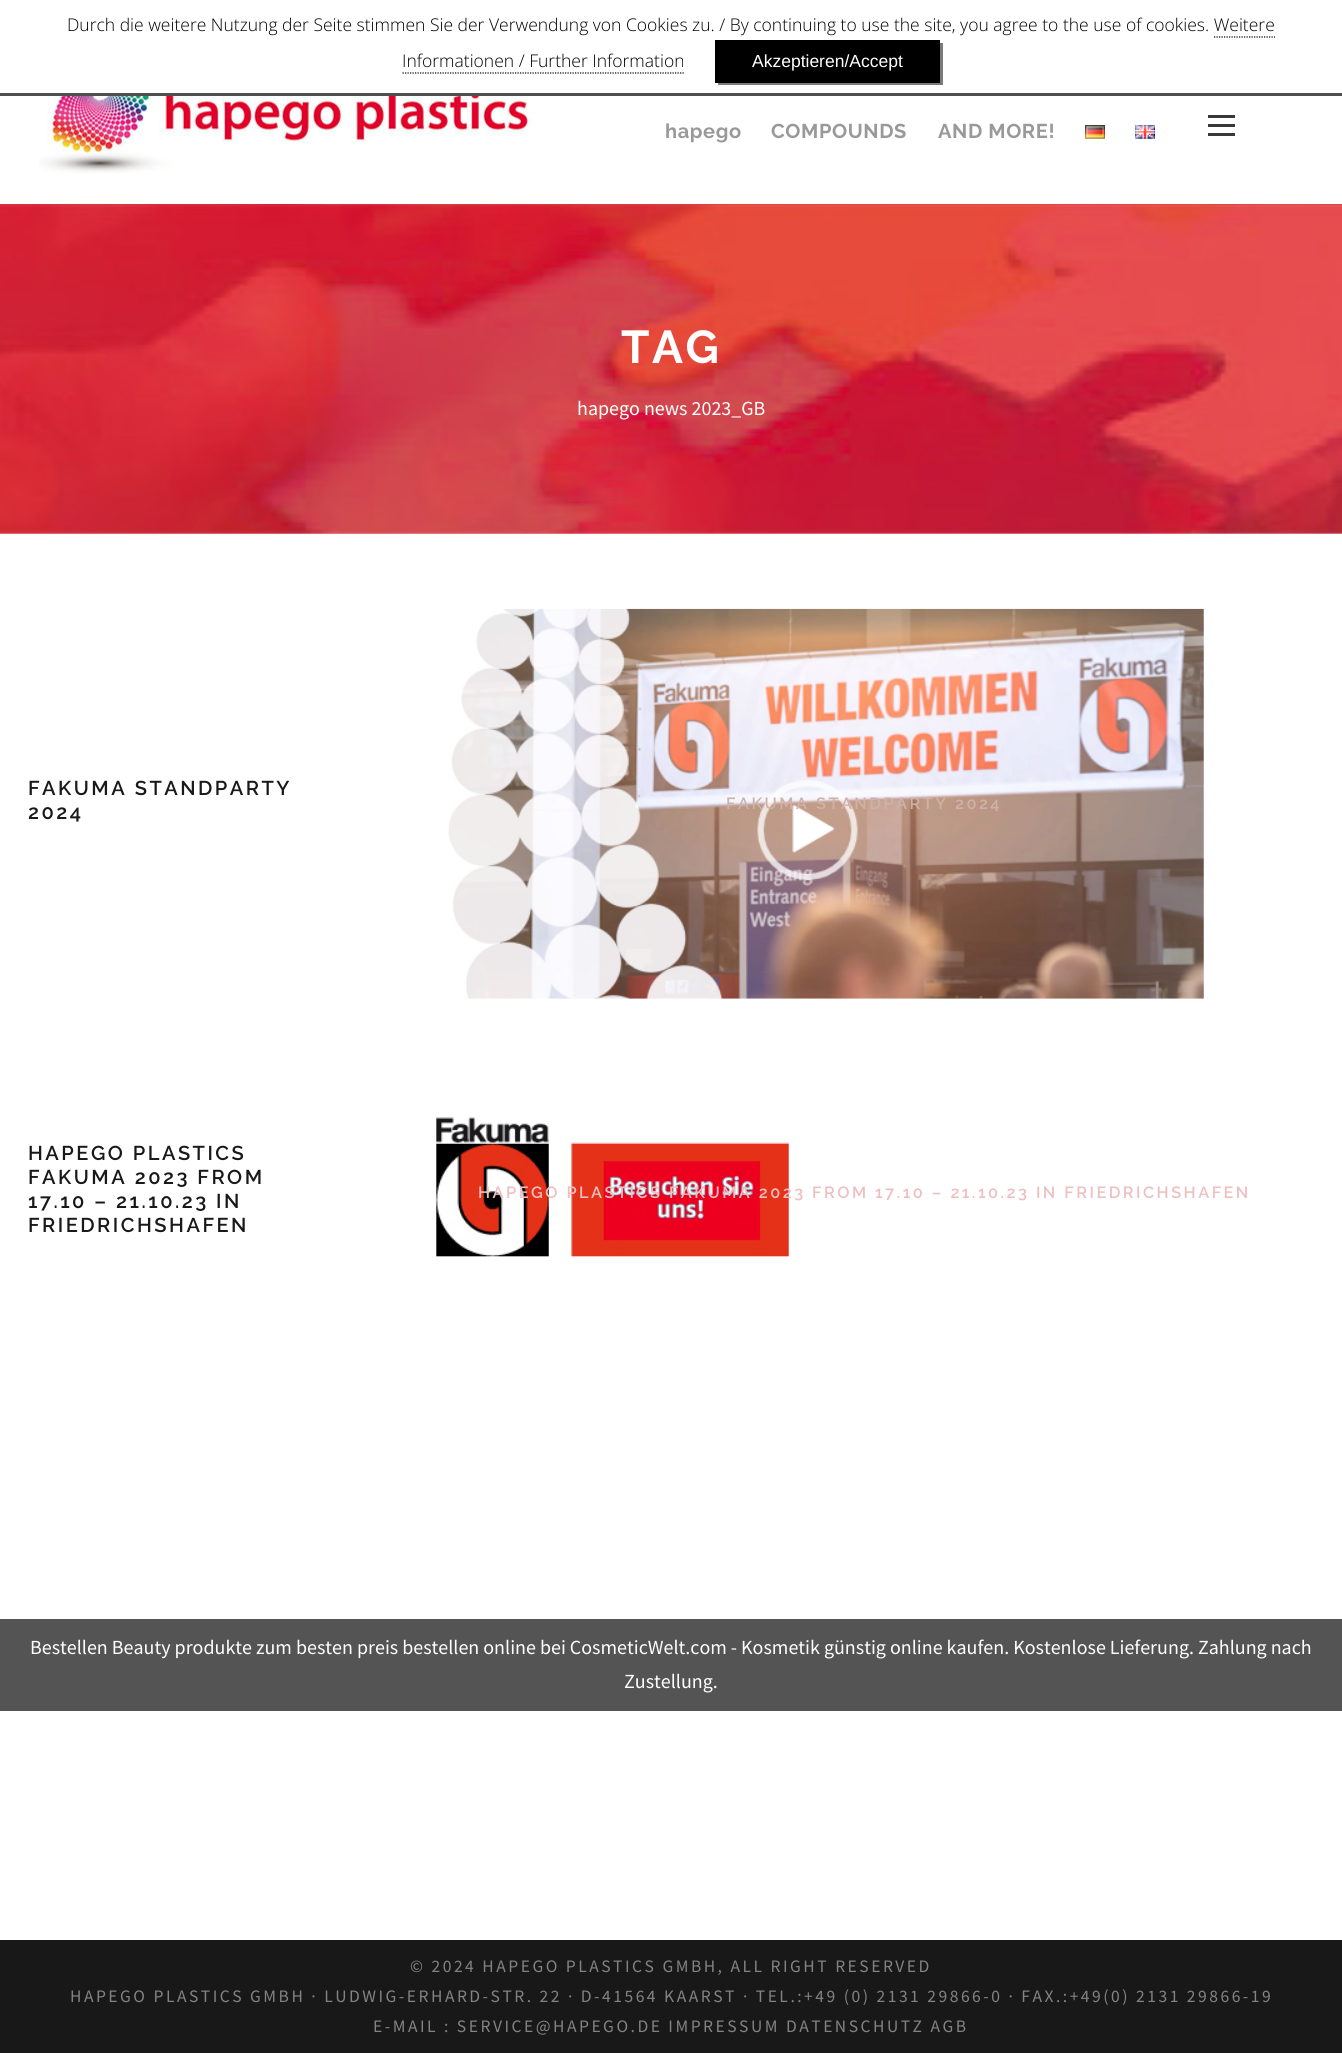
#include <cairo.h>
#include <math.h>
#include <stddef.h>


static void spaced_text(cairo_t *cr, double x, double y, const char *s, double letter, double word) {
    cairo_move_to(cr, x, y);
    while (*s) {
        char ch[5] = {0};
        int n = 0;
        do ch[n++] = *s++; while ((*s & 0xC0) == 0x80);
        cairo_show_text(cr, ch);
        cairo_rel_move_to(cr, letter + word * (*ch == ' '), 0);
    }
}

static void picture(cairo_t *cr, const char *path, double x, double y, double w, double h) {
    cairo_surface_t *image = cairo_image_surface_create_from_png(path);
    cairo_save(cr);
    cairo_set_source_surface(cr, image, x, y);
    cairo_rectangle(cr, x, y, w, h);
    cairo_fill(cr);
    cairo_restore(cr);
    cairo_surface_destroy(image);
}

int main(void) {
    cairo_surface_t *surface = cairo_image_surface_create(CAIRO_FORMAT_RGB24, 1342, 2053);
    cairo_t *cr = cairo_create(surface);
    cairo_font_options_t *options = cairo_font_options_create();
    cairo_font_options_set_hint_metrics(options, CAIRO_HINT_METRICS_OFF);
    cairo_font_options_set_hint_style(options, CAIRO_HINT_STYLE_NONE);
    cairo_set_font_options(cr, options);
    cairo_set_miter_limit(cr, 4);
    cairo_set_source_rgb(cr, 1, 1, 1);
    cairo_paint(cr);
    cairo_set_source_rgb(cr, 0.31, 0.31, 0.31);
    cairo_rectangle(cr, 0, 93, 1342, 3);
    cairo_fill(cr);
    cairo_select_font_face(cr, "Open Sans Light", CAIRO_FONT_SLANT_NORMAL, CAIRO_FONT_WEIGHT_NORMAL);
    cairo_set_font_size(cr, 17.5);
    cairo_set_source_rgb(cr, 0, 0, 0);
    cairo_move_to(cr, 67, 31);
    cairo_show_text(cr, "Durch die weitere Nutzung der Seite stimmen Sie der Verwendung von Cookies zu. / By continuing to use the site, you agree to the use of cookies. Weitere");
    cairo_move_to(cr, 402, 67);
    cairo_show_text(cr, "Informationen / Further Information");
    cairo_new_path(cr);
    cairo_move_to(cr, 1214, 37);
    cairo_line_to(cr, 1275, 37);
    cairo_set_line_width(cr, 1.2);
    cairo_set_dash(cr, (double[]){1.25, 1.25}, 2, 0);
    cairo_stroke(cr);
    cairo_new_path(cr);
    cairo_move_to(cr, 402.5, 73);
    cairo_line_to(cr, 685, 73);
    cairo_stroke(cr);
    cairo_set_source_rgb(cr, 0.482, 0.482, 0.482);
    cairo_new_path(cr);
    cairo_move_to(cr, 718, 82);
    cairo_line_to(cr, 718, 85);
    cairo_line_to(cr, 943, 85);
    cairo_line_to(cr, 943, 43);
    cairo_line_to(cr, 940, 43);
    cairo_line_to(cr, 940, 82);
    cairo_close_path(cr);
    cairo_fill(cr);
    cairo_set_source_rgb(cr, 0, 0, 0);
    cairo_rectangle(cr, 715, 40, 225, 43);
    cairo_fill(cr);
    cairo_select_font_face(cr, "Liberation Sans", CAIRO_FONT_SLANT_NORMAL, CAIRO_FONT_WEIGHT_NORMAL);
    cairo_set_source_rgb(cr, 1, 1, 1);
    cairo_move_to(cr, 752, 67);
    cairo_show_text(cr, "Akzeptieren/Accept");
    picture(cr, "img1.png", 39, 96, 496, 77);
    cairo_select_font_face(cr, "Raleway", CAIRO_FONT_SLANT_NORMAL, CAIRO_FONT_WEIGHT_BOLD);
    cairo_set_font_size(cr, 20);
    cairo_set_source_rgb(cr, 0.6, 0.6, 0.6);
    spaced_text(cr, 665, 138, "hapego", 0.6, 0);
    spaced_text(cr, 771, 138, "COMPOUNDS", 0.6, 0);
    spaced_text(cr, 938, 138, "AND MORE!", 0.6, 0);
    picture(cr, "img2.png", 1085, 125, 20, 14);
    picture(cr, "img3.png", 1135, 125, 20, 14);
    cairo_set_source_rgb(cr, 0.22, 0.22, 0.22);
    cairo_rectangle(cr, 1208, 115, 27, 3);
    cairo_fill(cr);
    cairo_rectangle(cr, 1208, 124, 27, 3);
    cairo_fill(cr);
    cairo_rectangle(cr, 1208, 133, 27, 3);
    cairo_fill(cr);
    picture(cr, "img4.png", 0, 204, 1342, 330);
    cairo_set_font_size(cr, 46);
    cairo_set_source_rgb(cr, 1, 1, 1);
    spaced_text(cr, 621, 363, "TAG", 2.5, 0);
    cairo_select_font_face(cr, "Source Sans Pro", CAIRO_FONT_SLANT_NORMAL, CAIRO_FONT_WEIGHT_NORMAL);
    cairo_set_font_size(cr, 20);
    cairo_move_to(cr, 577, 415);
    cairo_show_text(cr, "hapego news 2023_GB");
    cairo_select_font_face(cr, "Raleway SemiBold", CAIRO_FONT_SLANT_NORMAL, CAIRO_FONT_WEIGHT_NORMAL);
    cairo_set_source_rgb(cr, 0.098, 0.098, 0.098);
    spaced_text(cr, 28, 795, "FAKUMA STANDPARTY", 2.5, 0);
    spaced_text(cr, 28, 819, "2024", 2.5, 0);
    picture(cr, "img5.png", 448, 608, 756, 391);
    cairo_set_font_size(cr, 16.25);
    cairo_set_source_rgb(cr, 0.804, 0.698, 0.655);
    spaced_text(cr, 726, 809, "FAKUMA STANDPARTY 2024", 2.5, 0);
    cairo_set_font_size(cr, 20);
    cairo_set_source_rgb(cr, 0.098, 0.098, 0.098);
    spaced_text(cr, 28, 1160, "HAPEGO PLASTICS", 2.5, 0);
    spaced_text(cr, 28, 1184, "FAKUMA 2023 FROM", 2.5, 0);
    spaced_text(cr, 28, 1208, "17.10 – 21.10.23 IN", 2.5, 0);
    spaced_text(cr, 28, 1232, "FRIEDRICHSHAFEN", 2.5, 0);
    picture(cr, "img6.png", 436, 1117, 353, 140);
    cairo_set_font_size(cr, 16.25);
    cairo_set_source_rgb(cr, 0.933, 0.749, 0.757);
    spaced_text(cr, 478, 1198, "HAPEGO PLASTICS FAKUMA 2023 FROM 17.10 – 21.10.23 IN FRIEDRICHSHAFEN", 2.5, 0);
    cairo_set_source_rgb(cr, 0.094, 0.094, 0.094);
    cairo_rectangle(cr, 0, 1940, 1342, 113);
    cairo_fill(cr);
    cairo_select_font_face(cr, "Source Sans Pro", CAIRO_FONT_SLANT_NORMAL, CAIRO_FONT_WEIGHT_NORMAL);
    cairo_set_font_size(cr, 17.5);
    cairo_set_source_rgb(cr, 0.514, 0.514, 0.514);
    spaced_text(cr, 410, 1972, "© 2024 HAPEGO PLASTICS GMBH, ALL RIGHT RESERVED", 2.5, 0);
    spaced_text(cr, 70, 2002, "HAPEGO PLASTICS GMBH · LUDWIG-ERHARD-STR. 22 · D-41564 KAARST · TEL.:+49 (0) 2131 29866-0 · FAX.:+49(0) 2131 29866-19", 2.5, 0);
    spaced_text(cr, 373, 2032, "E-MAIL : SERVICE@HAPEGO.DE IMPRESSUM DATENSCHUTZ AGB", 2.5, 0);
    cairo_set_source_rgb(cr, 0.329, 0.329, 0.329);
    cairo_rectangle(cr, 0, 1619, 1342, 92);
    cairo_fill(cr);
    cairo_set_font_size(cr, 20);
    cairo_set_source_rgb(cr, 1, 1, 1);
    cairo_move_to(cr, 30, 1654);
    cairo_show_text(cr, "Bestellen Beauty produkte zum besten preis bestellen online bei CosmeticWelt.com - Kosmetik günstig online kaufen. Kostenlose Lieferung. Zahlung nach");
    cairo_move_to(cr, 624, 1688);
    cairo_show_text(cr, "Zustellung.");
    cairo_surface_write_to_png(surface, "page.png");
    cairo_font_options_destroy(options);
    cairo_destroy(cr);
    cairo_surface_destroy(surface);
    return 0;
}
